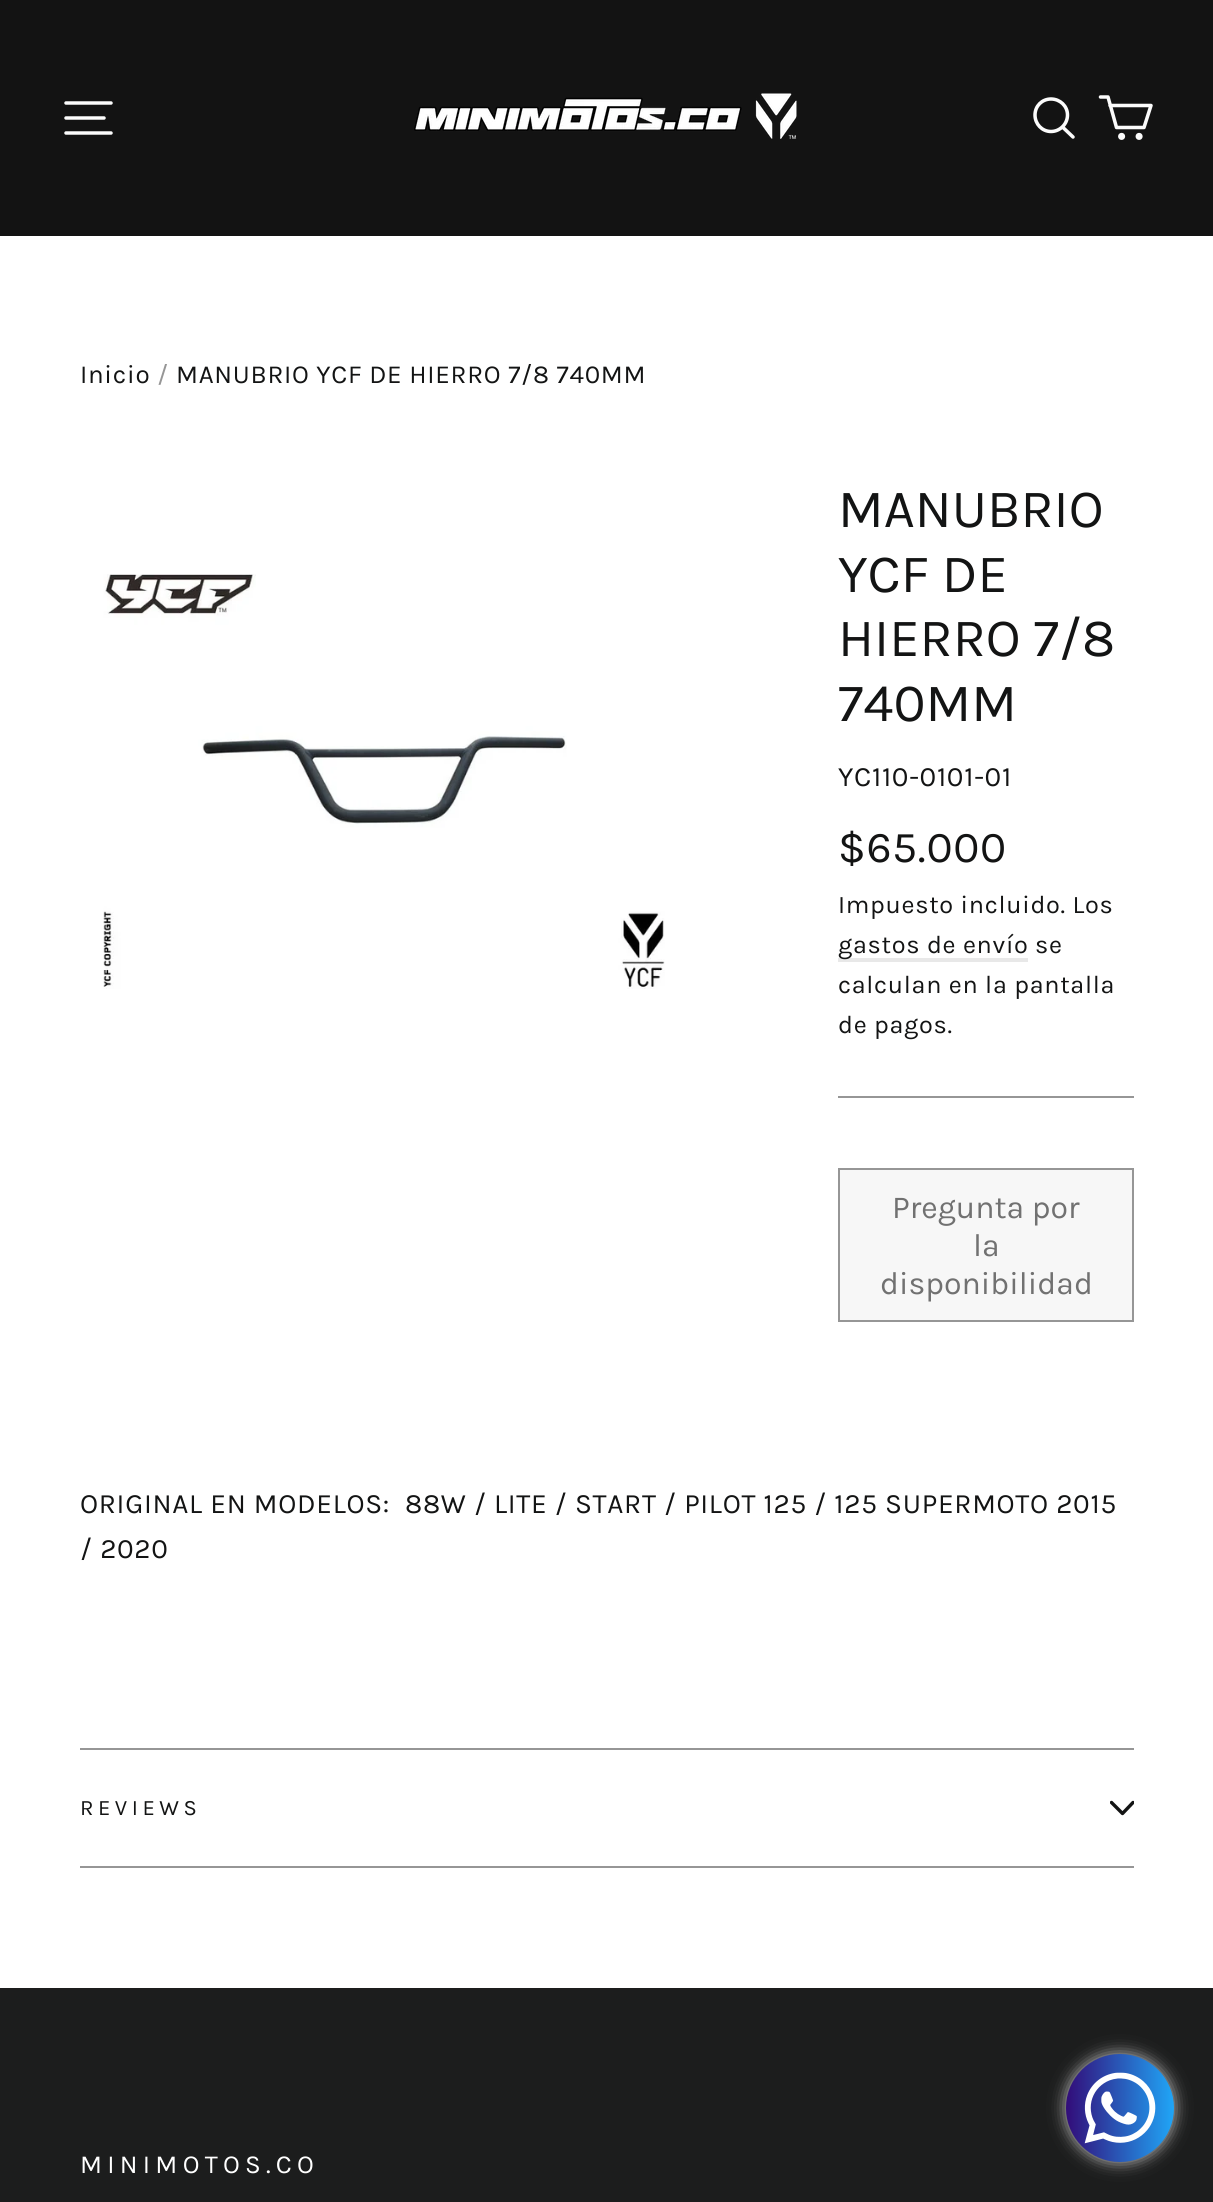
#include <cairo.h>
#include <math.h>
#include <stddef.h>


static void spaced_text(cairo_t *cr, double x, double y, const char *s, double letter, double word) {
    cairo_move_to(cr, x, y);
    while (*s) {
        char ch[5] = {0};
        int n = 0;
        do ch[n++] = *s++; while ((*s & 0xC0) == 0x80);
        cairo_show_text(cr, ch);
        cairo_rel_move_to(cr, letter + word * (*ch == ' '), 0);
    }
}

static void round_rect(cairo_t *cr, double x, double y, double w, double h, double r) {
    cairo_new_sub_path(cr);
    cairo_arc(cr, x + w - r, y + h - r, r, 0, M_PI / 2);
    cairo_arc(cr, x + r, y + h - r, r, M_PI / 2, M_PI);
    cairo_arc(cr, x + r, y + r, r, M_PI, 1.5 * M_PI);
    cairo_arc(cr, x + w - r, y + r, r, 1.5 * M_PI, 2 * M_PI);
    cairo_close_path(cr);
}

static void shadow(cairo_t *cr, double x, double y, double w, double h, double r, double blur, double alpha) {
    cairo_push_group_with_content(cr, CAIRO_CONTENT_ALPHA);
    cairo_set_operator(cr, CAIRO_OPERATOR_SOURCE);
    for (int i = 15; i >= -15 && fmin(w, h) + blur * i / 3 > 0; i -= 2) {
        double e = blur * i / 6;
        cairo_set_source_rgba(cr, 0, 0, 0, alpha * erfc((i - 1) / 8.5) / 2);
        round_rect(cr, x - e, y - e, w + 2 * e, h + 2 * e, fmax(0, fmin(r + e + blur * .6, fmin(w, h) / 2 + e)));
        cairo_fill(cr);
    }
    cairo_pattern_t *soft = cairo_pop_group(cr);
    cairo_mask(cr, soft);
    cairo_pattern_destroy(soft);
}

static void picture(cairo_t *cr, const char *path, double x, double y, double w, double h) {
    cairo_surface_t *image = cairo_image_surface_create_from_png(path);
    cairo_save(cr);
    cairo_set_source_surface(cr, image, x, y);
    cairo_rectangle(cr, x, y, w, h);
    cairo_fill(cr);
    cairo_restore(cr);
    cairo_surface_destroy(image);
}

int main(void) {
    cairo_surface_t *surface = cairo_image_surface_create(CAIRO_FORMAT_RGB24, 1213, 2202);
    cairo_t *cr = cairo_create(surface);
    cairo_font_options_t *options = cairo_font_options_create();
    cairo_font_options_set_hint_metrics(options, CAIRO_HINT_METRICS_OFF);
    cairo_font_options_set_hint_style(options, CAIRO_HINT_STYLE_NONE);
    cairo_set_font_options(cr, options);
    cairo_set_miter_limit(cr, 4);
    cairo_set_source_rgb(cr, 1, 1, 1);
    cairo_paint(cr);
    cairo_set_source_rgb(cr, 0.075, 0.075, 0.075);
    cairo_rectangle(cr, 0, 0, 1213, 236);
    cairo_fill(cr);
    cairo_new_path(cr);
    cairo_move_to(cr, 66, 103);
    cairo_line_to(cr, 111, 103);
    cairo_move_to(cr, 66, 118);
    cairo_line_to(cr, 104, 118);
    cairo_move_to(cr, 66, 133);
    cairo_line_to(cr, 111, 133);
    cairo_set_source_rgb(cr, 0.988, 0.988, 0.988);
    cairo_set_line_width(cr, 3.5);
    cairo_set_line_cap(cr, CAIRO_LINE_CAP_ROUND);
    cairo_set_line_join(cr, CAIRO_LINE_JOIN_ROUND);
    cairo_stroke(cr);
    picture(cr, "img1.png", 414, 93, 383, 46);
    cairo_new_path(cr);
    cairo_move_to(cr, 1067.5, 115);
    cairo_curve_to(cr, 1067.5, 124, 1060, 131.5, 1051, 131.5);
    cairo_curve_to(cr, 1042, 131.5, 1035, 124, 1035, 115);
    cairo_curve_to(cr, 1035, 106, 1042, 99, 1051, 99);
    cairo_curve_to(cr, 1060, 99, 1067.5, 106, 1067.5, 115);
    cairo_close_path(cr);
    cairo_move_to(cr, 1073, 137);
    cairo_line_to(cr, 1062.5, 127);
    cairo_stroke(cr);
    cairo_new_path(cr);
    cairo_move_to(cr, 1110, 105.5);
    cairo_line_to(cr, 1151, 105.5);
    cairo_line_to(cr, 1144, 127.5);
    cairo_line_to(cr, 1116.5, 127.5);
    cairo_line_to(cr, 1108, 97);
    cairo_line_to(cr, 1100.5, 97);
    cairo_stroke(cr);
    cairo_arc(cr, 1121.6, 136.4, 1.8, 0, 2 * M_PI);
    cairo_set_line_cap(cr, CAIRO_LINE_CAP_BUTT);
    cairo_set_line_join(cr, CAIRO_LINE_JOIN_MITER);
    cairo_stroke(cr);
    cairo_arc(cr, 1139.1, 136.4, 1.8, 0, 2 * M_PI);
    cairo_stroke(cr);
    cairo_select_font_face(cr, "Karla", CAIRO_FONT_SLANT_NORMAL, CAIRO_FONT_WEIGHT_NORMAL);
    cairo_set_font_size(cr, 26);
    cairo_set_source_rgb(cr, 0.078, 0.082, 0.082);
    spaced_text(cr, 80, 383, "Inicio", 0.7, 0);
    cairo_set_source_rgb(cr, 0.588, 0.588, 0.588);
    spaced_text(cr, 157, 383, "/", 0.7, 0);
    cairo_set_source_rgb(cr, 0.078, 0.082, 0.082);
    spaced_text(cr, 176, 383, "MANUBRIO YCF DE HIERRO 7/8 740MM", 0.7, 0);
    picture(cr, "img2.png", 103, 574, 562, 415);
    cairo_set_font_size(cr, 54);
    cairo_move_to(cr, 838, 527);
    cairo_show_text(cr, "MANUBRIO");
    cairo_move_to(cr, 838, 592);
    cairo_show_text(cr, "YCF DE");
    cairo_move_to(cr, 838, 656);
    cairo_show_text(cr, "HIERRO 7/8");
    cairo_move_to(cr, 838, 721);
    cairo_show_text(cr, "740MM");
    cairo_set_font_size(cr, 28);
    spaced_text(cr, 838, 786, "YC110-0101-01", 0.7, 0);
    cairo_set_font_size(cr, 44);
    spaced_text(cr, 838, 862, "$65.000", 0.7, 0);
    cairo_set_font_size(cr, 25.25);
    spaced_text(cr, 838, 913, "Impuesto incluido. Los", 0.7, 0);
    cairo_set_source_rgb(cr, 0.91, 0.91, 0.91);
    cairo_rectangle(cr, 838, 958, 190, 4);
    cairo_fill(cr);
    cairo_set_source_rgb(cr, 0.078, 0.082, 0.082);
    spaced_text(cr, 838, 953, "gastos de envío", 0.7, 0);
    spaced_text(cr, 1035, 953, "se", 0.7, 0);
    spaced_text(cr, 838, 993, "calculan en la pantalla", 0.7, 0);
    spaced_text(cr, 838, 1033, "de pagos.", 0.7, 0);
    cairo_set_source_rgb(cr, 0.588, 0.588, 0.588);
    cairo_rectangle(cr, 838, 1096, 296, 2);
    cairo_fill(cr);
    cairo_set_source_rgb(cr, 0.965, 0.965, 0.965);
    cairo_rectangle(cr, 839, 1169, 294, 152);
    cairo_fill_preserve(cr);
    cairo_set_source_rgb(cr, 0.588, 0.588, 0.588);
    cairo_set_line_width(cr, 2);
    cairo_stroke(cr);
    cairo_set_font_size(cr, 32);
    cairo_set_source_rgb(cr, 0.443, 0.443, 0.443);
    cairo_move_to(cr, 892, 1218);
    cairo_show_text(cr, "Pregunta por");
    cairo_move_to(cr, 973, 1256);
    cairo_show_text(cr, "la");
    cairo_move_to(cr, 880, 1294);
    cairo_show_text(cr, "disponibilidad");
    cairo_set_font_size(cr, 28);
    cairo_set_source_rgb(cr, 0.078, 0.082, 0.082);
    spaced_text(cr, 80, 1513, "ORIGINAL EN MODELOS:", 0.7, 0);
    spaced_text(cr, 405, 1513, "88W / LITE / START / PILOT 125 / 125 SUPERMOTO 2015", 0.7, 0);
    spaced_text(cr, 80, 1558, "/ 2020", 0.7, 0);
    cairo_set_source_rgb(cr, 0.588, 0.588, 0.588);
    cairo_rectangle(cr, 80, 1866, 1054, 2);
    cairo_fill(cr);
    cairo_rectangle(cr, 80, 1748, 1054, 2);
    cairo_fill(cr);
    cairo_set_font_size(cr, 22);
    cairo_set_source_rgb(cr, 0.078, 0.082, 0.082);
    spaced_text(cr, 80, 1815, "REVIEWS", 4.5, 0);
    cairo_save(cr);
    cairo_rectangle(cr, 1110, 1796, 24, 24);
    cairo_clip(cr);
    cairo_new_path(cr);
    cairo_move_to(cr, 1111.5, 1802.5);
    cairo_line_to(cr, 1122.5, 1813.5);
    cairo_line_to(cr, 1133, 1802.5);
    cairo_set_line_width(cr, 3.4);
    cairo_set_line_cap(cr, CAIRO_LINE_CAP_ROUND);
    cairo_set_line_join(cr, CAIRO_LINE_JOIN_ROUND);
    cairo_stroke(cr);
    cairo_restore(cr);
    cairo_set_source_rgb(cr, 0.11, 0.114, 0.114);
    cairo_rectangle(cr, 0, 1988, 1213, 214);
    cairo_fill(cr);
    cairo_set_font_size(cr, 26);
    cairo_set_source_rgb(cr, 1, 1, 1);
    spaced_text(cr, 80, 2173, "MINIMOTOS.CO", 5.25, 0);
    cairo_set_source_rgb(cr, 0.761, 0.761, 0.761);
    shadow(cr, 1066, 2054, 108, 108, 54, 8, 1);
    picture(cr, "img3.png", 1066, 2054, 108, 108);
    cairo_surface_write_to_png(surface, "page.png");
    cairo_font_options_destroy(options);
    cairo_destroy(cr);
    cairo_surface_destroy(surface);
    return 0;
}
